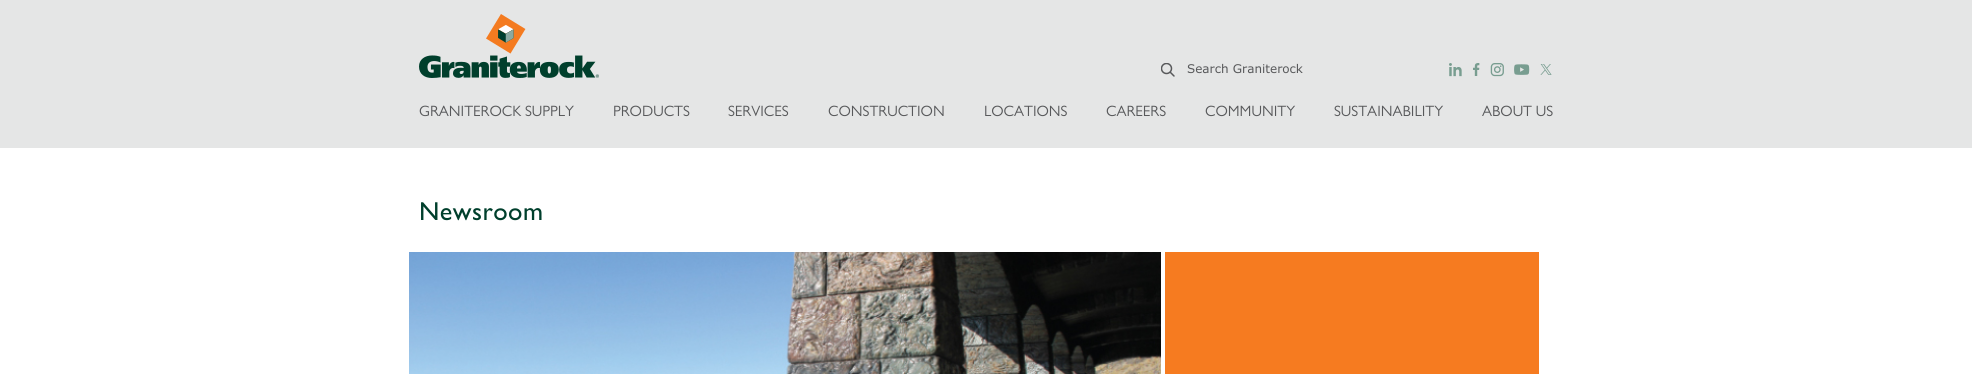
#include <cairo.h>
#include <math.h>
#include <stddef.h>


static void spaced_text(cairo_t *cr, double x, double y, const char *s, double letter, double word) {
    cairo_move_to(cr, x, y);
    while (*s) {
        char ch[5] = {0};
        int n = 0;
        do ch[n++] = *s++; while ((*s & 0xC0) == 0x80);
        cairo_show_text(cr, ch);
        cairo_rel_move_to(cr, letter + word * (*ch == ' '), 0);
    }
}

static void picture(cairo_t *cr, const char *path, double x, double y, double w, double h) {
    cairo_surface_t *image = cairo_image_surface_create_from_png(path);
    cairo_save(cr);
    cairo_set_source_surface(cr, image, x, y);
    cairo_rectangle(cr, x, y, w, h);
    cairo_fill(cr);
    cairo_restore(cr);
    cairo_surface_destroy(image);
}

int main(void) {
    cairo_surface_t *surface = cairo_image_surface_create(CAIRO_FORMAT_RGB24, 1972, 374);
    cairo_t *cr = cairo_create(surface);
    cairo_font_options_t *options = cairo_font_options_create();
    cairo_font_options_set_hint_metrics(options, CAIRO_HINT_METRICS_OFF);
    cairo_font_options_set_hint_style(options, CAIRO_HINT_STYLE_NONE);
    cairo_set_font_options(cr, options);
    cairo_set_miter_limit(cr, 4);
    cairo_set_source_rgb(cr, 1, 1, 1);
    cairo_paint(cr);
    cairo_set_source_rgb(cr, 0.898, 0.902, 0.902);
    cairo_rectangle(cr, 0, 0, 1972, 148);
    cairo_fill(cr);
    picture(cr, "img1.png", 419, 14, 180, 64);
    picture(cr, "img2.png", 1161, 63, 14, 14);
    cairo_select_font_face(cr, "Verdana", CAIRO_FONT_SLANT_NORMAL, CAIRO_FONT_WEIGHT_NORMAL);
    cairo_set_font_size(cr, 12);
    cairo_set_source_rgb(cr, 0.345, 0.349, 0.357);
    cairo_move_to(cr, 1187, 73);
    cairo_show_text(cr, "Search Graniterock");
    picture(cr, "img3.png", 1449, 63, 13, 14);
    picture(cr, "img4.png", 1473, 63, 7, 13);
    picture(cr, "img5.png", 1490, 63, 14, 14);
    picture(cr, "img6.png", 1514, 64, 16, 11);
    picture(cr, "img7.png", 1540, 64, 12, 11);
    cairo_select_font_face(cr, "Gill Sans", CAIRO_FONT_SLANT_NORMAL, CAIRO_FONT_WEIGHT_NORMAL);
    cairo_set_font_size(cr, 15);
    cairo_move_to(cr, 419, 116);
    cairo_show_text(cr, "GRANITEROCK SUPPLY");
    cairo_move_to(cr, 613, 116);
    cairo_show_text(cr, "PRODUCTS");
    cairo_move_to(cr, 728, 116);
    cairo_show_text(cr, "SERVICES");
    cairo_move_to(cr, 828, 116);
    cairo_show_text(cr, "CONSTRUCTION");
    cairo_move_to(cr, 984, 116);
    cairo_show_text(cr, "LOCATIONS");
    cairo_move_to(cr, 1106, 116);
    cairo_show_text(cr, "CAREERS");
    cairo_move_to(cr, 1205, 116);
    cairo_show_text(cr, "COMMUNITY");
    cairo_move_to(cr, 1334, 116);
    cairo_show_text(cr, "SUSTAINABILITY");
    cairo_move_to(cr, 1482, 116);
    cairo_show_text(cr, "ABOUT US");
    cairo_select_font_face(cr, "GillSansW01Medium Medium", CAIRO_FONT_SLANT_NORMAL, CAIRO_FONT_WEIGHT_NORMAL);
    cairo_set_font_size(cr, 26);
    cairo_set_source_rgb(cr, 0, 0.247, 0.173);
    spaced_text(cr, 419, 220, "Newsroom", 0.5, 0);
    picture(cr, "img8.png", 409, 252, 752, 122);
    cairo_set_source_rgb(cr, 0.961, 0.482, 0.125);
    cairo_rectangle(cr, 1165, 252, 374, 122);
    cairo_fill(cr);
    cairo_surface_write_to_png(surface, "page.png");
    cairo_font_options_destroy(options);
    cairo_destroy(cr);
    cairo_surface_destroy(surface);
    return 0;
}
